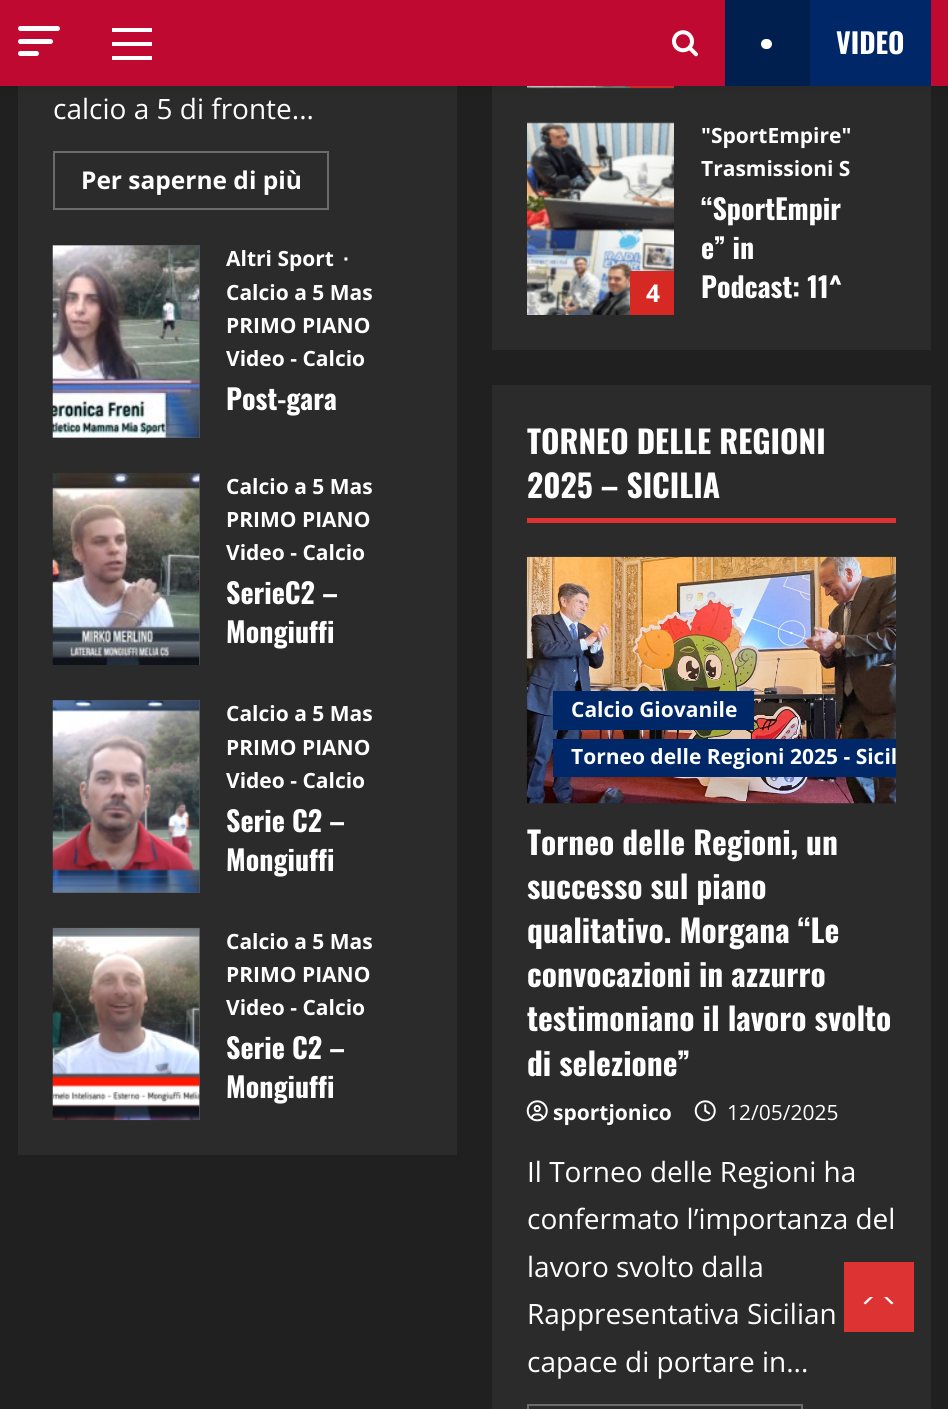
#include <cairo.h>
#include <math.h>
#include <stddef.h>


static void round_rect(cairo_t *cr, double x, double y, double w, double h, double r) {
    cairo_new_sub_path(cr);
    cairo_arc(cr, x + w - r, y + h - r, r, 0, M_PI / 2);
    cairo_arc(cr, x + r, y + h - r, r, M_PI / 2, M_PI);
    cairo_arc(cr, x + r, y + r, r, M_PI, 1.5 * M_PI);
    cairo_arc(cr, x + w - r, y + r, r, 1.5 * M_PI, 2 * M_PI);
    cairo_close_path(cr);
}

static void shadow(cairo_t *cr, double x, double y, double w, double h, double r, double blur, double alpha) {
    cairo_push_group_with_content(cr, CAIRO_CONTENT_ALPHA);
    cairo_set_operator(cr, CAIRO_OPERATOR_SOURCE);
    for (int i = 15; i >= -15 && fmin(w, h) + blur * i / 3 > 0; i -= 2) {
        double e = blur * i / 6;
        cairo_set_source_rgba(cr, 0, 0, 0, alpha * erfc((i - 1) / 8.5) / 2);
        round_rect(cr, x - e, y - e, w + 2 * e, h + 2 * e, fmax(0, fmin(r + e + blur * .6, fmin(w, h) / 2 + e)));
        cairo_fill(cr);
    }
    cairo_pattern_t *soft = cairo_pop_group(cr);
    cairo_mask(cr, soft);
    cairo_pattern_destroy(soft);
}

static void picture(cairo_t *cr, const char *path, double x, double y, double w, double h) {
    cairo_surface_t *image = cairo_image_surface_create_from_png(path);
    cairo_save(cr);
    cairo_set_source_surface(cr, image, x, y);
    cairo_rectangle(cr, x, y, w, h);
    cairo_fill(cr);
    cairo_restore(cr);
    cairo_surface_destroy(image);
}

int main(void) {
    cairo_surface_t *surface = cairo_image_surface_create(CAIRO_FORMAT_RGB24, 948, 1409);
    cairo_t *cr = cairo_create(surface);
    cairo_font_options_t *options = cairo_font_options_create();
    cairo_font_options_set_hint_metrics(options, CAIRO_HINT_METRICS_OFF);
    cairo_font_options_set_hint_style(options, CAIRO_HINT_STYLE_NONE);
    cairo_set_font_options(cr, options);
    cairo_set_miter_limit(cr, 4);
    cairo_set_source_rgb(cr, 0.125, 0.125, 0.125);
    cairo_paint(cr);
    cairo_set_source_rgb(cr, 0.169, 0.169, 0.169);
    cairo_rectangle(cr, 18, 86, 439, 1069);
    cairo_fill(cr);
    cairo_rectangle(cr, 492, 86, 439, 264);
    cairo_fill(cr);
    cairo_set_source_rgb(cr, 0.333, 0.333, 0.333);
    cairo_rectangle(cr, 527, 87, 103, 1);
    cairo_fill(cr);
    picture(cr, "img6.png", 527, 86, 147, 3);
    cairo_set_source_rgb(cr, 0.843, 0.161, 0.141);
    cairo_rectangle(cr, 630, 86, 44, 2);
    cairo_fill(cr);
    cairo_set_source_rgb(cr, 0, 0, 0);
    shadow(cr, 0, 4, 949, 85, 0, 7, 0.08);
    cairo_set_source_rgb(cr, 0.749, 0.039, 0.188);
    cairo_rectangle(cr, 0, 0, 948, 86);
    cairo_fill(cr);
    cairo_set_source_rgb(cr, 1, 1, 1);
    round_rect(cr, 18, 26, 42, 5, 2.5);
    cairo_fill(cr);
    round_rect(cr, 18, 39, 35, 5, 2.5);
    cairo_fill(cr);
    round_rect(cr, 18, 51, 21, 5, 2.5);
    cairo_fill(cr);
    cairo_rectangle(cr, 112, 42, 40, 4);
    cairo_fill(cr);
    cairo_rectangle(cr, 112, 28, 40, 4);
    cairo_fill(cr);
    cairo_rectangle(cr, 112, 56, 40, 4);
    cairo_fill(cr);
    picture(cr, "img1.png", 672, 30, 26, 27);
    cairo_set_source_rgb(cr, 0, 0.157, 0.408);
    cairo_rectangle(cr, 810, 0, 121, 86);
    cairo_fill(cr);
    cairo_set_source_rgb(cr, 0, 0.118, 0.306);
    cairo_rectangle(cr, 725, 0, 85, 86);
    cairo_fill(cr);
    cairo_set_source_rgb(cr, 1, 1, 1);
    round_rect(cr, 761, 39, 11, 10, 5);
    cairo_fill(cr);
    cairo_select_font_face(cr, "Oswald", CAIRO_FONT_SLANT_NORMAL, CAIRO_FONT_WEIGHT_BOLD);
    cairo_set_font_size(cr, 28);
    cairo_move_to(cr, 836, 54);
    cairo_show_text(cr, "VIDEO");
    cairo_select_font_face(cr, "Open Sans", CAIRO_FONT_SLANT_NORMAL, CAIRO_FONT_WEIGHT_NORMAL);
    cairo_move_to(cr, 53, 119);
    cairo_show_text(cr, "calcio a 5 di fronte...");
    cairo_rectangle(cr, 54, 152, 274, 57);
    cairo_set_source_rgb(cr, 0.42, 0.42, 0.42);
    cairo_stroke(cr);
    cairo_select_font_face(cr, "Open Sans", CAIRO_FONT_SLANT_NORMAL, CAIRO_FONT_WEIGHT_BOLD);
    cairo_set_font_size(cr, 24.5);
    cairo_set_source_rgb(cr, 1, 1, 1);
    cairo_move_to(cr, 81, 189);
    cairo_show_text(cr, "Per saperne di più");
    cairo_set_source_rgb(cr, 0.333, 0.333, 0.333);
    cairo_rectangle(cr, 53, 245, 147, 193);
    cairo_fill(cr);
    picture(cr, "img2.png", 52, 245, 148, 193);
    cairo_set_font_size(cr, 21);
    cairo_set_source_rgb(cr, 1, 1, 1);
    cairo_move_to(cr, 226, 266);
    cairo_show_text(cr, "Altri Sport");
    cairo_select_font_face(cr, "Liberation Sans", CAIRO_FONT_SLANT_NORMAL, CAIRO_FONT_WEIGHT_BOLD);
    cairo_move_to(cr, 343, 266);
    cairo_show_text(cr, "∙");
    cairo_select_font_face(cr, "Open Sans", CAIRO_FONT_SLANT_NORMAL, CAIRO_FONT_WEIGHT_BOLD);
    cairo_move_to(cr, 226, 300);
    cairo_show_text(cr, "Calcio a 5 Mas");
    cairo_move_to(cr, 226, 333);
    cairo_show_text(cr, "PRIMO PIANO");
    cairo_move_to(cr, 226, 366);
    cairo_show_text(cr, "Video - Calcio");
    cairo_select_font_face(cr, "Oswald", CAIRO_FONT_SLANT_NORMAL, CAIRO_FONT_WEIGHT_BOLD);
    cairo_set_font_size(cr, 28);
    cairo_move_to(cr, 226, 410);
    cairo_show_text(cr, "Post-gara");
    cairo_set_source_rgb(cr, 0.333, 0.333, 0.333);
    cairo_rectangle(cr, 199, 473, 1, 192);
    cairo_fill(cr);
    picture(cr, "img3.png", 52, 472, 148, 193);
    cairo_select_font_face(cr, "Open Sans", CAIRO_FONT_SLANT_NORMAL, CAIRO_FONT_WEIGHT_BOLD);
    cairo_set_font_size(cr, 21);
    cairo_set_source_rgb(cr, 1, 1, 1);
    cairo_move_to(cr, 226, 494);
    cairo_show_text(cr, "Calcio a 5 Mas");
    cairo_move_to(cr, 226, 527);
    cairo_show_text(cr, "PRIMO PIANO");
    cairo_move_to(cr, 226, 560);
    cairo_show_text(cr, "Video - Calcio");
    cairo_select_font_face(cr, "Oswald", CAIRO_FONT_SLANT_NORMAL, CAIRO_FONT_WEIGHT_BOLD);
    cairo_set_font_size(cr, 28);
    cairo_move_to(cr, 226, 604);
    cairo_show_text(cr, "SerieC2 –");
    cairo_move_to(cr, 226, 643);
    cairo_show_text(cr, "Mongiuffi");
    cairo_set_source_rgb(cr, 0.333, 0.333, 0.333);
    cairo_rectangle(cr, 53, 700, 147, 193);
    cairo_fill(cr);
    picture(cr, "img4.png", 52, 700, 148, 193);
    cairo_select_font_face(cr, "Open Sans", CAIRO_FONT_SLANT_NORMAL, CAIRO_FONT_WEIGHT_BOLD);
    cairo_set_font_size(cr, 21);
    cairo_set_source_rgb(cr, 1, 1, 1);
    cairo_move_to(cr, 226, 721);
    cairo_show_text(cr, "Calcio a 5 Mas");
    cairo_move_to(cr, 226, 755);
    cairo_show_text(cr, "PRIMO PIANO");
    cairo_move_to(cr, 226, 788);
    cairo_show_text(cr, "Video - Calcio");
    cairo_select_font_face(cr, "Oswald", CAIRO_FONT_SLANT_NORMAL, CAIRO_FONT_WEIGHT_BOLD);
    cairo_set_font_size(cr, 28);
    cairo_move_to(cr, 226, 832);
    cairo_show_text(cr, "Serie C2 –");
    cairo_move_to(cr, 226, 871);
    cairo_show_text(cr, "Mongiuffi");
    cairo_set_source_rgb(cr, 0.333, 0.333, 0.333);
    cairo_rectangle(cr, 199, 928, 1, 192);
    cairo_fill(cr);
    picture(cr, "img5.png", 52, 927, 148, 194);
    cairo_select_font_face(cr, "Open Sans", CAIRO_FONT_SLANT_NORMAL, CAIRO_FONT_WEIGHT_BOLD);
    cairo_set_font_size(cr, 21);
    cairo_set_source_rgb(cr, 1, 1, 1);
    cairo_move_to(cr, 226, 949);
    cairo_show_text(cr, "Calcio a 5 Mas");
    cairo_move_to(cr, 226, 982);
    cairo_show_text(cr, "PRIMO PIANO");
    cairo_move_to(cr, 226, 1015);
    cairo_show_text(cr, "Video - Calcio");
    cairo_select_font_face(cr, "Oswald", CAIRO_FONT_SLANT_NORMAL, CAIRO_FONT_WEIGHT_BOLD);
    cairo_set_font_size(cr, 28);
    cairo_move_to(cr, 226, 1059);
    cairo_show_text(cr, "Serie C2 –");
    cairo_move_to(cr, 226, 1098);
    cairo_show_text(cr, "Mongiuffi");
    picture(cr, "img7.png", 527, 122, 147, 193);
    cairo_set_source_rgb(cr, 0.843, 0.161, 0.141);
    cairo_rectangle(cr, 630, 271, 44, 44);
    cairo_fill(cr);
    cairo_select_font_face(cr, "Open Sans", CAIRO_FONT_SLANT_NORMAL, CAIRO_FONT_WEIGHT_BOLD);
    cairo_set_font_size(cr, 24.5);
    cairo_set_source_rgb(cr, 1, 1, 1);
    cairo_move_to(cr, 646, 302);
    cairo_show_text(cr, "4");
    cairo_set_font_size(cr, 21);
    cairo_move_to(cr, 701, 143);
    cairo_show_text(cr, "\"SportEmpire\"");
    cairo_move_to(cr, 701, 176);
    cairo_show_text(cr, "Trasmissioni S");
    cairo_select_font_face(cr, "Oswald", CAIRO_FONT_SLANT_NORMAL, CAIRO_FONT_WEIGHT_BOLD);
    cairo_set_font_size(cr, 28);
    cairo_move_to(cr, 701, 220);
    cairo_show_text(cr, "“SportEmpir");
    cairo_move_to(cr, 701, 259);
    cairo_show_text(cr, "e” in");
    cairo_move_to(cr, 701, 298);
    cairo_show_text(cr, "Podcast: 11^");
    cairo_set_source_rgb(cr, 0.169, 0.169, 0.169);
    cairo_rectangle(cr, 492, 385, 439, 1024);
    cairo_fill(cr);
    cairo_set_font_size(cr, 31.5);
    cairo_set_source_rgb(cr, 1, 1, 1);
    cairo_move_to(cr, 527, 454);
    cairo_show_text(cr, "TORNEO DELLE REGIONI");
    cairo_move_to(cr, 527, 498);
    cairo_show_text(cr, "2025 – SICILIA");
    cairo_set_source_rgb(cr, 0.867, 0.2, 0.2);
    cairo_rectangle(cr, 527, 518, 369, 5);
    cairo_fill(cr);
    picture(cr, "img8.png", 526, 556, 370, 248);
    cairo_set_source_rgb(cr, 0, 0.157, 0.408);
    cairo_rectangle(cr, 553, 691, 201, 39);
    cairo_fill(cr);
    cairo_select_font_face(cr, "Open Sans", CAIRO_FONT_SLANT_NORMAL, CAIRO_FONT_WEIGHT_BOLD);
    cairo_set_font_size(cr, 21);
    cairo_set_source_rgb(cr, 1, 1, 1);
    cairo_move_to(cr, 571, 717);
    cairo_show_text(cr, "Calcio Giovanile");
    cairo_set_source_rgb(cr, 0, 0.157, 0.408);
    cairo_rectangle(cr, 553, 739, 343, 38);
    cairo_fill(cr);
    cairo_set_source_rgb(cr, 1, 1, 1);
    cairo_move_to(cr, 571, 764);
    cairo_show_text(cr, "Torneo delle Regioni 2025 - Sicil");
    cairo_select_font_face(cr, "Oswald", CAIRO_FONT_SLANT_NORMAL, CAIRO_FONT_WEIGHT_BOLD);
    cairo_set_font_size(cr, 31.5);
    cairo_move_to(cr, 527, 855);
    cairo_show_text(cr, "Torneo delle Regioni, un");
    cairo_move_to(cr, 527, 899);
    cairo_show_text(cr, "successo sul piano");
    cairo_move_to(cr, 527, 943);
    cairo_show_text(cr, "qualitativo. Morgana “Le");
    cairo_move_to(cr, 527, 987);
    cairo_show_text(cr, "convocazioni in azzurro");
    cairo_move_to(cr, 527, 1031);
    cairo_show_text(cr, "testimoniano il lavoro svolto");
    cairo_move_to(cr, 527, 1076);
    cairo_show_text(cr, "di selezione”");
    picture(cr, "img9.png", 526, 1100, 22, 22);
    cairo_select_font_face(cr, "Open Sans", CAIRO_FONT_SLANT_NORMAL, CAIRO_FONT_WEIGHT_BOLD);
    cairo_set_font_size(cr, 21);
    cairo_move_to(cr, 553, 1120);
    cairo_show_text(cr, "sportjonico");
    picture(cr, "img10.png", 694, 1100, 22, 22);
    cairo_select_font_face(cr, "Open Sans", CAIRO_FONT_SLANT_NORMAL, CAIRO_FONT_WEIGHT_NORMAL);
    cairo_move_to(cr, 727, 1120);
    cairo_show_text(cr, "12/05/2025");
    cairo_set_font_size(cr, 28);
    cairo_move_to(cr, 527, 1182);
    cairo_show_text(cr, "Il Torneo delle Regioni ha");
    cairo_move_to(cr, 527, 1229);
    cairo_show_text(cr, "confermato l’importanza del");
    cairo_move_to(cr, 527, 1277);
    cairo_show_text(cr, "lavoro svolto dalla");
    cairo_move_to(cr, 527, 1324);
    cairo_show_text(cr, "Rappresentativa Sicilian");
    cairo_move_to(cr, 527, 1372);
    cairo_show_text(cr, "capace di portare in...");
    cairo_rectangle(cr, 528, 1405, 274, 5);
    cairo_set_source_rgb(cr, 0.42, 0.42, 0.42);
    cairo_stroke(cr);
    cairo_set_source_rgb(cr, 0.867, 0.2, 0.2);
    cairo_rectangle(cr, 844, 1262, 70, 70);
    cairo_fill(cr);
    cairo_set_source_rgb(cr, 1, 1, 1);
    cairo_new_path(cr);
    cairo_move_to(cr, 870, 1305.5);
    cairo_line_to(cr, 887, 1305.5);
    cairo_curve_to(cr, 889.5, 1305.5, 892, 1304.5, 893.5, 1303);
    cairo_line_to(cr, 887, 1297);
    cairo_line_to(cr, 870, 1297);
    cairo_line_to(cr, 863.5, 1303);
    cairo_curve_to(cr, 865, 1304.5, 867.5, 1305.5, 870, 1305.5);
    cairo_close_path(cr);
    cairo_fill(cr);
    cairo_set_source_rgb(cr, 0.867, 0.2, 0.2);
    cairo_new_path(cr);
    cairo_move_to(cr, 896, 1309);
    cairo_line_to(cr, 861, 1309);
    cairo_line_to(cr, 878.5, 1291.5);
    cairo_close_path(cr);
    cairo_fill(cr);
    cairo_surface_write_to_png(surface, "page.png");
    cairo_font_options_destroy(options);
    cairo_destroy(cr);
    cairo_surface_destroy(surface);
    return 0;
}
